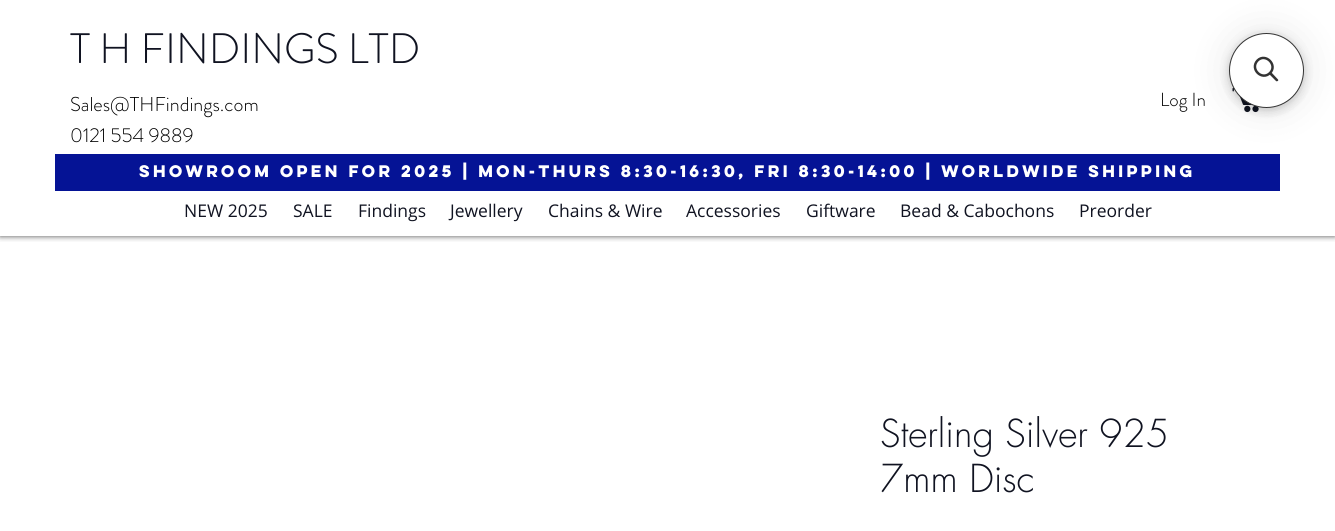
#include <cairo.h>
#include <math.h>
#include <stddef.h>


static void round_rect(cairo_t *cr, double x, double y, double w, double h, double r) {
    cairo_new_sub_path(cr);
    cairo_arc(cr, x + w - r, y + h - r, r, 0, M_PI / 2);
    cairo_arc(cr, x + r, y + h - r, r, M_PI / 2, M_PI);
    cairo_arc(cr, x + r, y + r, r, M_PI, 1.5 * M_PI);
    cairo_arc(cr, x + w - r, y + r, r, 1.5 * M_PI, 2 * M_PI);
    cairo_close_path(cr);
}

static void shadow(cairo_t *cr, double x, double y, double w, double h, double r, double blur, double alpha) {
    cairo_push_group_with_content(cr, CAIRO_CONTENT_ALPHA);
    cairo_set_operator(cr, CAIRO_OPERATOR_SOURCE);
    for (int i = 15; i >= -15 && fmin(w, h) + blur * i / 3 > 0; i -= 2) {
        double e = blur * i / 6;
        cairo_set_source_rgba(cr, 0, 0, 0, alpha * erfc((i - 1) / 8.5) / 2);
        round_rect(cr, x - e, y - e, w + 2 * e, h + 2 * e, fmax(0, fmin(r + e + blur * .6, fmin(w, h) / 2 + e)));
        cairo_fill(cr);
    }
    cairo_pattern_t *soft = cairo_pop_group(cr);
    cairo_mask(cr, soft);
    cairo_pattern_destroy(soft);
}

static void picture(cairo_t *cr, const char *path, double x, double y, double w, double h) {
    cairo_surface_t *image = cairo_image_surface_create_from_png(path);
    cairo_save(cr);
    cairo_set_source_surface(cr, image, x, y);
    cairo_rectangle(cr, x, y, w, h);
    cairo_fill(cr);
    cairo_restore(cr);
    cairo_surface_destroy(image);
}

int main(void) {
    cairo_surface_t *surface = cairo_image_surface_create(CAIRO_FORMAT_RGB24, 1335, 531);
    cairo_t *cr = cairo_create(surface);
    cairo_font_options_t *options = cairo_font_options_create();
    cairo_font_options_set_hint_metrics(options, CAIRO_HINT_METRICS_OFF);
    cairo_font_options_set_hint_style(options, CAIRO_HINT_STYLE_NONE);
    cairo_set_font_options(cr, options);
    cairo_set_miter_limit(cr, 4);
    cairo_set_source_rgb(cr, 1, 1, 1);
    cairo_paint(cr);
    cairo_save(cr);
    cairo_rectangle(cr, 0, 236, 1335, 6);
    cairo_clip(cr);
    cairo_set_source_rgb(cr, 0, 0, 0);
    shadow(cr, 0, 0, 1335, 236, 0, 3, 0.7);
    cairo_restore(cr);
    cairo_select_font_face(cr, "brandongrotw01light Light", CAIRO_FONT_SLANT_NORMAL, CAIRO_FONT_WEIGHT_NORMAL);
    cairo_set_font_size(cr, 42.5);
    cairo_set_source_rgb(cr, 0.063, 0.078, 0.129);
    cairo_move_to(cr, 70, 63);
    cairo_show_text(cr, "T H FINDINGS LTD");
    cairo_set_font_size(cr, 20);
    cairo_set_source_rgb(cr, 0, 0, 0);
    cairo_move_to(cr, 70, 111);
    cairo_show_text(cr, "Sales@THFindings.com");
    cairo_set_font_size(cr, 19);
    cairo_move_to(cr, 1160, 106);
    cairo_show_text(cr, "Log In");
    picture(cr, "img1.png", 1232, 87, 27, 26);
    cairo_set_font_size(cr, 20);
    cairo_move_to(cr, 70, 142);
    cairo_show_text(cr, "0121 554 9889");
    cairo_set_source_rgb(cr, 0.02, 0.075, 0.584);
    cairo_rectangle(cr, 55, 154, 1225, 37);
    cairo_fill(cr);
    cairo_select_font_face(cr, "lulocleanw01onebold", CAIRO_FONT_SLANT_NORMAL, CAIRO_FONT_WEIGHT_BOLD);
    cairo_set_font_size(cr, 15);
    cairo_set_source_rgb(cr, 1, 1, 1);
    cairo_move_to(cr, 139, 177);
    cairo_show_text(cr, "Showroom OPEN for 2025 | Mon-Thurs 8:30-16:30, Fri 8:30-14:00 | Worldwide Shipping");
    cairo_select_font_face(cr, "Open Sans", CAIRO_FONT_SLANT_NORMAL, CAIRO_FONT_WEIGHT_NORMAL);
    cairo_set_font_size(cr, 17.5);
    cairo_set_source_rgb(cr, 0.063, 0.078, 0.129);
    cairo_move_to(cr, 184, 217);
    cairo_show_text(cr, "NEW 2025");
    cairo_move_to(cr, 293, 217);
    cairo_show_text(cr, "SALE");
    cairo_move_to(cr, 358, 217);
    cairo_show_text(cr, "Findings");
    cairo_move_to(cr, 450, 217);
    cairo_show_text(cr, "Jewellery");
    cairo_move_to(cr, 548, 217);
    cairo_show_text(cr, "Chains & Wire");
    cairo_move_to(cr, 686, 217);
    cairo_show_text(cr, "Accessories");
    cairo_move_to(cr, 806, 217);
    cairo_show_text(cr, "Giftware");
    cairo_move_to(cr, 900, 217);
    cairo_show_text(cr, "Bead & Cabochons");
    cairo_move_to(cr, 1079, 217);
    cairo_show_text(cr, "Preorder");
    cairo_select_font_face(cr, "futura Light", CAIRO_FONT_SLANT_NORMAL, CAIRO_FONT_WEIGHT_NORMAL);
    cairo_set_font_size(cr, 37.5);
    cairo_move_to(cr, 880, 447);
    cairo_show_text(cr, "Sterling Silver 925");
    cairo_move_to(cr, 880, 492);
    cairo_show_text(cr, "7mm Disc");
    cairo_set_source_rgb(cr, 0, 0, 0);
    shadow(cr, 1229, 38, 75, 75, 37.5, 5, 0.05);
    shadow(cr, 1229, 35, 75, 75, 37.5, 5, 0.15);
    shadow(cr, 1229, 33, 75, 75, 37.5, 19, 0.1);
    cairo_set_source_rgb(cr, 1, 1, 1);
    cairo_arc(cr, 1266.5, 70.5, 37, 0, 2 * M_PI);
    cairo_fill_preserve(cr);
    cairo_set_source_rgb(cr, 0.2, 0.2, 0.2);
    cairo_set_line_width(cr, 1);
    cairo_stroke(cr);
    cairo_new_path(cr);
    cairo_move_to(cr, 1257.5, 60.5);
    cairo_curve_to(cr, 1265.5, 52.5, 1278, 65, 1270, 73);
    cairo_curve_to(cr, 1262, 81, 1249.5, 69, 1257.5, 60.5);
    cairo_close_path(cr);
    cairo_set_line_width(cr, 2.5);
    cairo_stroke(cr);
    cairo_new_path(cr);
    cairo_move_to(cr, 1269, 74);
    cairo_line_to(cr, 1271, 72);
    cairo_line_to(cr, 1278, 79.5);
    cairo_curve_to(cr, 1279, 80.5, 1277, 82, 1276, 81);
    cairo_close_path(cr);
    cairo_fill(cr);
    cairo_surface_write_to_png(surface, "page.png");
    cairo_font_options_destroy(options);
    cairo_destroy(cr);
    cairo_surface_destroy(surface);
    return 0;
}
